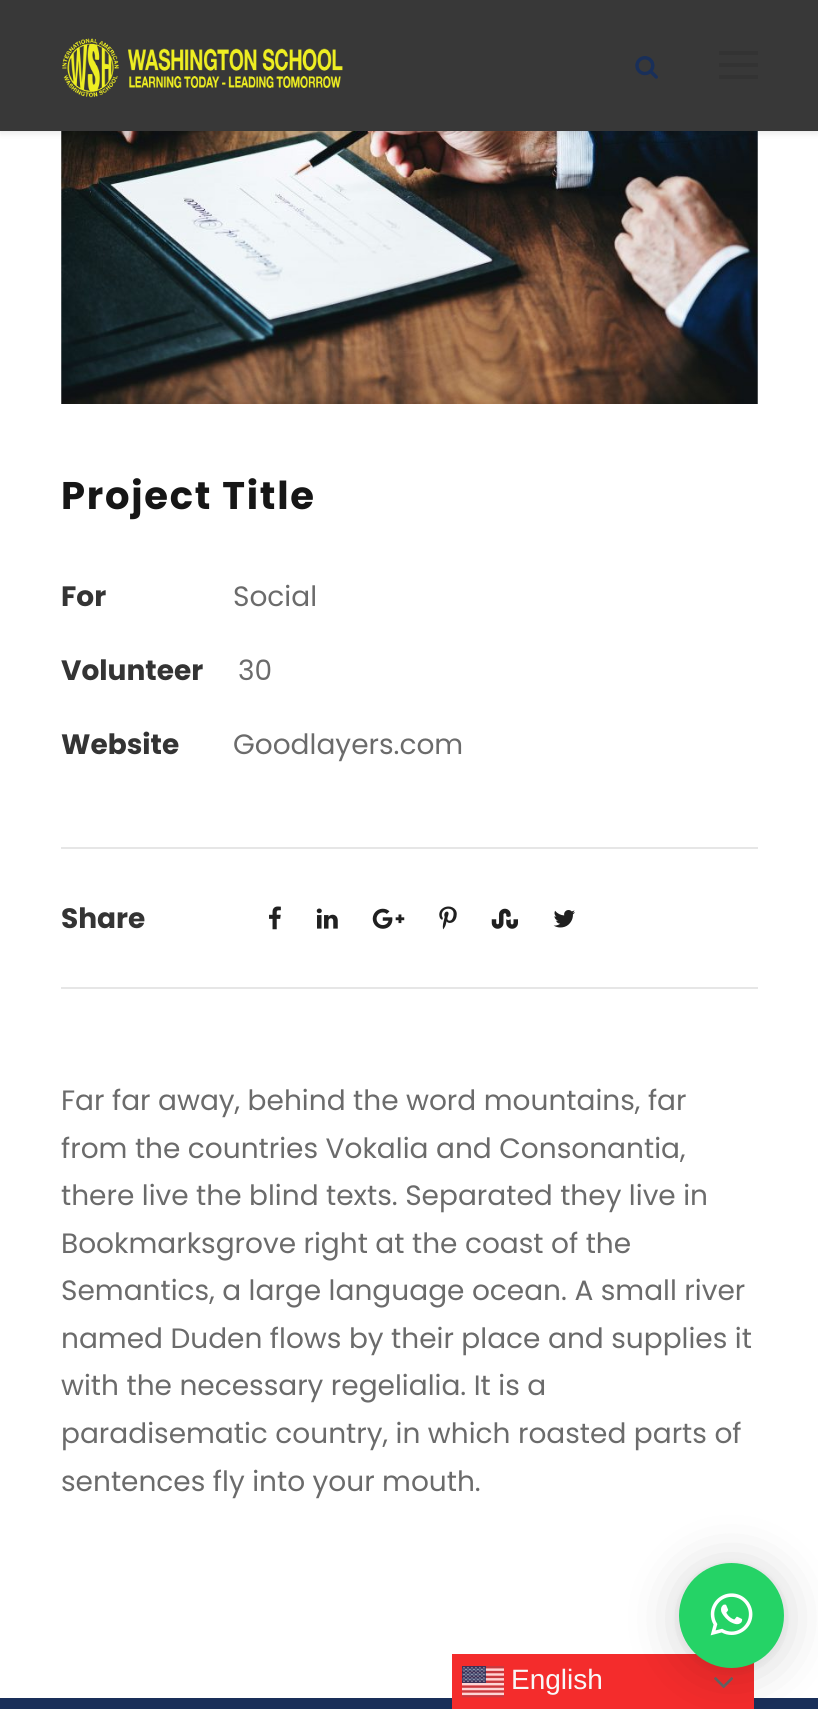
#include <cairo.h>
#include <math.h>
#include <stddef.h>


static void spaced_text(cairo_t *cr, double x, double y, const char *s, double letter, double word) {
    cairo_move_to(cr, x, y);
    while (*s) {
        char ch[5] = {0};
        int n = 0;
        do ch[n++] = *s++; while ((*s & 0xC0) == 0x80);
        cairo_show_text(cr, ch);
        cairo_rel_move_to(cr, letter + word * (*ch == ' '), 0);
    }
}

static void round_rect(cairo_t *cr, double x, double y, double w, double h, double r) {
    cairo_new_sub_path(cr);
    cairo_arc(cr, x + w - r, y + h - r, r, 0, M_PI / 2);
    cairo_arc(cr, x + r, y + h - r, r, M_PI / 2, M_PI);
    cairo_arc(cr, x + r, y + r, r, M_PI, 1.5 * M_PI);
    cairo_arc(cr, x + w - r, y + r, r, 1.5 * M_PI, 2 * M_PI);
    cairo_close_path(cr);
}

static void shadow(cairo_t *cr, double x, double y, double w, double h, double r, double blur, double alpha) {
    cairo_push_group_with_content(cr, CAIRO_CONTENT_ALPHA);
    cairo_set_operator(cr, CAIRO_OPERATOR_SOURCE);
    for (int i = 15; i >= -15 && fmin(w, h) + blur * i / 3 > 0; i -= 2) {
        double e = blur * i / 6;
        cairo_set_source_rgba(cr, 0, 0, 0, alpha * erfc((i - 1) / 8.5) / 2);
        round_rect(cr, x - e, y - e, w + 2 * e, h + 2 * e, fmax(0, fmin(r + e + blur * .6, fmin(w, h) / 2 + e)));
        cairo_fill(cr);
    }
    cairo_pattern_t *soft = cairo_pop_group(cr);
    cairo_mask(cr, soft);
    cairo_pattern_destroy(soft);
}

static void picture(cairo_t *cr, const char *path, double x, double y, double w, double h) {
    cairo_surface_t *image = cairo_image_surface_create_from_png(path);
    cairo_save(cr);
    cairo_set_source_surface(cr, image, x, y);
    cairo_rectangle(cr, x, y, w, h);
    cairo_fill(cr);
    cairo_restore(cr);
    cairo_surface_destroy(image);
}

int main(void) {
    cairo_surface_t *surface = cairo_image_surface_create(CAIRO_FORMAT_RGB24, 818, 1709);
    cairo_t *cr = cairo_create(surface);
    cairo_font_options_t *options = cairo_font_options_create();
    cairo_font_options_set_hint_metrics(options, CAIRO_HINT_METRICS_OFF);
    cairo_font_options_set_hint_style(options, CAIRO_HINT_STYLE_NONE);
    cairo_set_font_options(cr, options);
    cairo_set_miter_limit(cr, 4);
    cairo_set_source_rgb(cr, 1, 1, 1);
    cairo_paint(cr);
    picture(cr, "img3.png", 61, 131, 697, 273);
    cairo_set_source_rgb(cr, 0, 0, 0);
    shadow(cr, 0, 2, 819, 131, 0, 3.5, 0.1);
    cairo_set_source_rgb(cr, 0.22, 0.22, 0.22);
    cairo_rectangle(cr, 0, 0, 818, 131);
    cairo_fill(cr);
    picture(cr, "img1.png", 62, 38, 281, 60);
    picture(cr, "img2.png", 635, 56, 23, 23);
    cairo_set_source_rgb(cr, 0.2, 0.2, 0.2);
    cairo_rectangle(cr, 719, 51, 39, 4);
    cairo_fill(cr);
    cairo_rectangle(cr, 719, 63, 39, 4);
    cairo_fill(cr);
    cairo_rectangle(cr, 719, 75, 39, 4);
    cairo_fill(cr);
    cairo_select_font_face(cr, "Poppins", CAIRO_FONT_SLANT_NORMAL, CAIRO_FONT_WEIGHT_BOLD);
    cairo_set_font_size(cr, 38.5);
    cairo_set_source_rgb(cr, 0.086, 0.086, 0.086);
    spaced_text(cr, 61, 509, "Project Title", 1.75, 0);
    cairo_set_source_rgb(cr, 0.902, 0.902, 0.902);
    cairo_rectangle(cr, 61, 987, 697, 2);
    cairo_fill(cr);
    cairo_set_font_size(cr, 28);
    cairo_set_source_rgb(cr, 0.204, 0.204, 0.204);
    cairo_move_to(cr, 61, 606);
    cairo_show_text(cr, "For");
    cairo_select_font_face(cr, "Poppins", CAIRO_FONT_SLANT_NORMAL, CAIRO_FONT_WEIGHT_NORMAL);
    cairo_set_source_rgb(cr, 0.42, 0.42, 0.42);
    cairo_move_to(cr, 233, 606);
    cairo_show_text(cr, "Social");
    cairo_select_font_face(cr, "Poppins", CAIRO_FONT_SLANT_NORMAL, CAIRO_FONT_WEIGHT_BOLD);
    cairo_set_source_rgb(cr, 0.204, 0.204, 0.204);
    cairo_move_to(cr, 61, 680);
    cairo_show_text(cr, "Volunteer");
    cairo_select_font_face(cr, "Poppins", CAIRO_FONT_SLANT_NORMAL, CAIRO_FONT_WEIGHT_NORMAL);
    cairo_set_source_rgb(cr, 0.42, 0.42, 0.42);
    cairo_move_to(cr, 238, 680);
    cairo_show_text(cr, "30");
    cairo_select_font_face(cr, "Poppins", CAIRO_FONT_SLANT_NORMAL, CAIRO_FONT_WEIGHT_BOLD);
    cairo_set_source_rgb(cr, 0.204, 0.204, 0.204);
    cairo_move_to(cr, 61, 754);
    cairo_show_text(cr, "Website");
    cairo_select_font_face(cr, "Poppins", CAIRO_FONT_SLANT_NORMAL, CAIRO_FONT_WEIGHT_NORMAL);
    cairo_set_source_rgb(cr, 0.42, 0.42, 0.42);
    cairo_move_to(cr, 233, 754);
    cairo_show_text(cr, "Goodlayers.com");
    cairo_set_source_rgb(cr, 0.902, 0.902, 0.902);
    cairo_rectangle(cr, 61, 847, 697, 2);
    cairo_fill(cr);
    cairo_select_font_face(cr, "Poppins", CAIRO_FONT_SLANT_NORMAL, CAIRO_FONT_WEIGHT_BOLD);
    cairo_set_source_rgb(cr, 0.204, 0.204, 0.204);
    cairo_move_to(cr, 61, 928);
    cairo_show_text(cr, "Share");
    picture(cr, "img4.png", 269, 906, 12, 24);
    picture(cr, "img5.png", 316, 908, 22, 21);
    picture(cr, "img6.png", 372, 908, 33, 21);
    picture(cr, "img7.png", 439, 906, 18, 24);
    picture(cr, "img8.png", 491, 908, 27, 21);
    picture(cr, "img9.png", 553, 910, 22, 18);
    cairo_select_font_face(cr, "Poppins", CAIRO_FONT_SLANT_NORMAL, CAIRO_FONT_WEIGHT_NORMAL);
    cairo_set_source_rgb(cr, 0.42, 0.42, 0.42);
    cairo_move_to(cr, 61, 1110);
    cairo_show_text(cr, "Far far away, behind the word mountains, far");
    cairo_move_to(cr, 61, 1158);
    cairo_show_text(cr, "from the countries Vokalia and Consonantia,");
    cairo_move_to(cr, 61, 1205);
    cairo_show_text(cr, "there live the blind texts. Separated they live in");
    cairo_move_to(cr, 61, 1253);
    cairo_show_text(cr, "Bookmarksgrove right at the coast of the");
    cairo_move_to(cr, 61, 1300);
    cairo_show_text(cr, "Semantics, a large language ocean. A small river");
    cairo_move_to(cr, 61, 1348);
    cairo_show_text(cr, "named Duden flows by their place and supplies it");
    cairo_move_to(cr, 61, 1395);
    cairo_show_text(cr, "with the necessary regelialia. It is a");
    cairo_move_to(cr, 61, 1443);
    cairo_show_text(cr, "paradisematic country, in which roasted parts of");
    cairo_move_to(cr, 61, 1491);
    cairo_show_text(cr, "sentences fly into your mouth.");
    cairo_set_source_rgb(cr, 0.098, 0.184, 0.349);
    cairo_rectangle(cr, 0, 1698, 818, 11);
    cairo_fill(cr);
    cairo_set_source_rgb(cr, 0.957, 0.173, 0.173);
    cairo_rectangle(cr, 452, 1654, 302, 55);
    cairo_fill(cr);
    picture(cr, "img10.png", 462, 1666, 42, 32);
    cairo_select_font_face(cr, "Liberation Sans", CAIRO_FONT_SLANT_NORMAL, CAIRO_FONT_WEIGHT_NORMAL);
    cairo_set_source_rgb(cr, 0.969, 0.969, 0.969);
    cairo_move_to(cr, 511, 1689);
    cairo_show_text(cr, "English");
    picture(cr, "img11.png", 714, 1677, 19, 12);
    cairo_set_source_rgb(cr, 0, 0, 0);
    shadow(cr, 679, 1566, 105, 105, 52.5, 28, 0.16);
    shadow(cr, 679, 1565, 105, 105, 52.5, 5, 0.06);
    cairo_set_source_rgb(cr, 0.145, 0.827, 0.4);
    cairo_arc(cr, 731.5, 1615.5, 52.5, 0, 2 * M_PI);
    cairo_fill(cr);
    picture(cr, "img12.png", 710, 1593, 43, 43);
    cairo_surface_write_to_png(surface, "page.png");
    cairo_font_options_destroy(options);
    cairo_destroy(cr);
    cairo_surface_destroy(surface);
    return 0;
}
